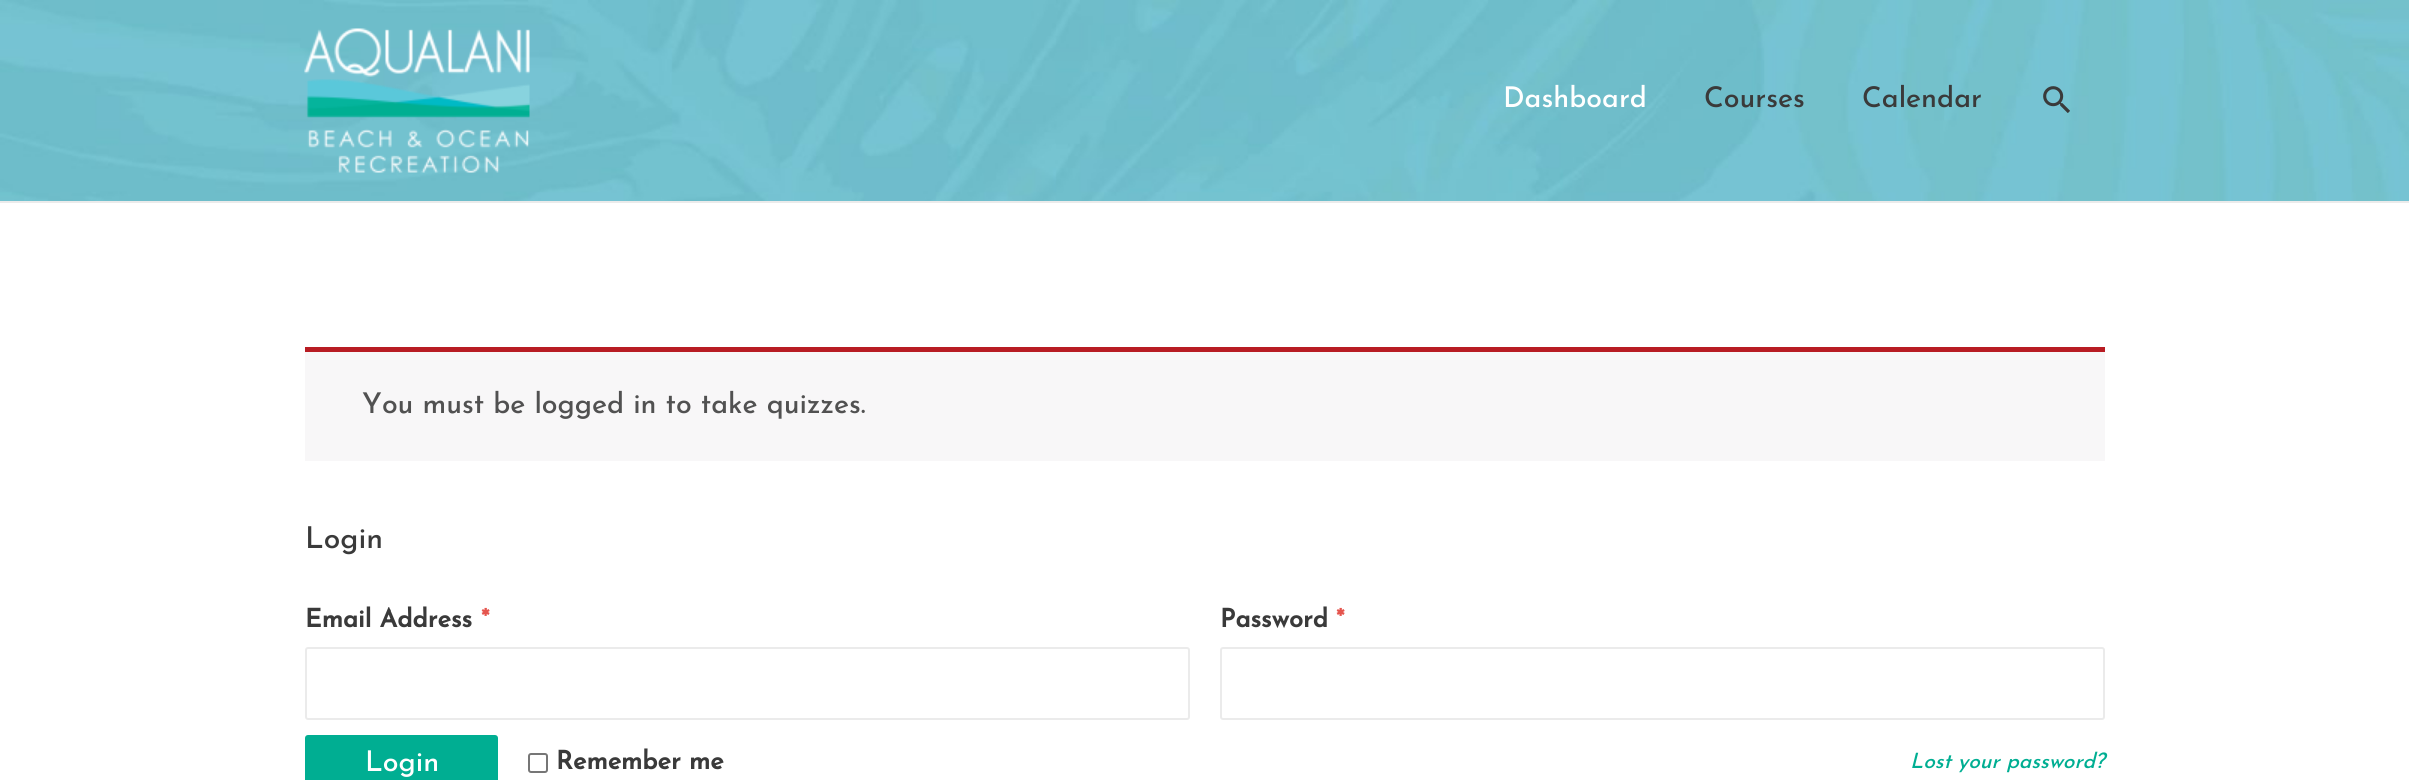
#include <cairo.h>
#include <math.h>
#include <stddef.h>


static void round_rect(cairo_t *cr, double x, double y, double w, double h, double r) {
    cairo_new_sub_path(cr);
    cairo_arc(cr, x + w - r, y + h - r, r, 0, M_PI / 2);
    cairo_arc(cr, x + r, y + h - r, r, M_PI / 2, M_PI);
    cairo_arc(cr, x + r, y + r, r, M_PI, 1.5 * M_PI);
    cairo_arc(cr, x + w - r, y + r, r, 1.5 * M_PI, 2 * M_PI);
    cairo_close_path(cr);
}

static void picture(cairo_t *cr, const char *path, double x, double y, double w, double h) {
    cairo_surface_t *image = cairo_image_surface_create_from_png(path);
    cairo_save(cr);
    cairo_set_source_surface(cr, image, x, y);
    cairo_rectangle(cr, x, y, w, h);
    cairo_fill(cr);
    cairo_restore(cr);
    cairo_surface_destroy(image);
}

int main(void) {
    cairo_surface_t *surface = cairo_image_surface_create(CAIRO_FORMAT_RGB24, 2409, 780);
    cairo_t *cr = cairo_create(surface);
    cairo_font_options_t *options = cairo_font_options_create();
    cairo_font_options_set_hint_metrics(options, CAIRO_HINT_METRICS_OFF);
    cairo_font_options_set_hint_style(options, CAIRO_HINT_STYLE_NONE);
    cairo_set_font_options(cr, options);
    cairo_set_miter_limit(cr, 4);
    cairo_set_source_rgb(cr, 1, 1, 1);
    cairo_paint(cr);
    picture(cr, "img1.png", 0, 0, 2409, 201);
    cairo_set_source_rgb(cr, 0.918, 0.918, 0.918);
    cairo_rectangle(cr, 0, 201, 2409, 2);
    cairo_fill(cr);
    picture(cr, "img2.png", 304, 28, 226, 145);
    cairo_select_font_face(cr, "Josefin Sans Thin", CAIRO_FONT_SLANT_NORMAL, CAIRO_FONT_WEIGHT_NORMAL);
    cairo_set_font_size(cr, 28.5);
    cairo_set_source_rgb(cr, 1, 1, 1);
    cairo_move_to(cr, 1503, 107);
    cairo_show_text(cr, "Dashboard");
    cairo_set_source_rgb(cr, 0.227, 0.227, 0.227);
    cairo_move_to(cr, 1704, 107);
    cairo_show_text(cr, "Courses");
    cairo_move_to(cr, 1862, 107);
    cairo_show_text(cr, "Calendar");
    picture(cr, "img3.png", 2043, 86, 27, 27);
    cairo_set_source_rgb(cr, 0.969, 0.965, 0.969);
    cairo_rectangle(cr, 305, 352, 1800, 109);
    cairo_fill(cr);
    cairo_set_source_rgb(cr, 0.722, 0.11, 0.137);
    cairo_rectangle(cr, 305, 347, 1800, 5);
    cairo_fill(cr);
    cairo_set_source_rgb(cr, 0.318, 0.318, 0.318);
    cairo_move_to(cr, 362, 413);
    cairo_show_text(cr, "You must be logged in to take quizzes.");
    cairo_set_font_size(cr, 30);
    cairo_set_source_rgb(cr, 0.227, 0.227, 0.227);
    cairo_move_to(cr, 305, 548);
    cairo_show_text(cr, "Login");
    cairo_select_font_face(cr, "Josefin Sans", CAIRO_FONT_SLANT_NORMAL, CAIRO_FONT_WEIGHT_BOLD);
    cairo_set_font_size(cr, 25.5);
    cairo_move_to(cr, 305, 627);
    cairo_show_text(cr, "Email Address");
    cairo_set_source_rgb(cr, 0.898, 0.333, 0.306);
    cairo_move_to(cr, 481, 627);
    cairo_show_text(cr, "*");
    round_rect(cr, 306, 648, 883, 71, 2);
    cairo_set_source_rgb(cr, 0.918, 0.918, 0.918);
    cairo_stroke(cr);
    cairo_set_source_rgb(cr, 0.227, 0.227, 0.227);
    cairo_move_to(cr, 1220, 627);
    cairo_show_text(cr, "Password");
    cairo_set_source_rgb(cr, 0.898, 0.333, 0.306);
    cairo_move_to(cr, 1336, 627);
    cairo_show_text(cr, "*");
    round_rect(cr, 1221, 648, 883, 71, 2);
    cairo_set_source_rgb(cr, 0.918, 0.918, 0.918);
    cairo_stroke(cr);
    cairo_set_source_rgb(cr, 0, 0.682, 0.573);
    round_rect(cr, 305, 735, 193, 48, 3);
    cairo_fill(cr);
    cairo_select_font_face(cr, "Josefin Sans Thin", CAIRO_FONT_SLANT_NORMAL, CAIRO_FONT_WEIGHT_NORMAL);
    cairo_set_font_size(cr, 28.5);
    cairo_set_source_rgb(cr, 1, 1, 1);
    cairo_move_to(cr, 365, 771);
    cairo_show_text(cr, "Login");
    round_rect(cr, 529, 754, 18, 18, 2);
    cairo_set_source_rgb(cr, 0.463, 0.463, 0.463);
    cairo_stroke(cr);
    cairo_select_font_face(cr, "Josefin Sans", CAIRO_FONT_SLANT_NORMAL, CAIRO_FONT_WEIGHT_BOLD);
    cairo_set_font_size(cr, 25.5);
    cairo_set_source_rgb(cr, 0.227, 0.227, 0.227);
    cairo_move_to(cr, 556, 769);
    cairo_show_text(cr, "Remember me");
    cairo_select_font_face(cr, "Josefin Sans Thin", CAIRO_FONT_SLANT_ITALIC, CAIRO_FONT_WEIGHT_NORMAL);
    cairo_set_font_size(cr, 21);
    cairo_set_source_rgb(cr, 0, 0.682, 0.573);
    cairo_move_to(cr, 1910, 768);
    cairo_show_text(cr, "Lost your password?");
    cairo_surface_write_to_png(surface, "page.png");
    cairo_font_options_destroy(options);
    cairo_destroy(cr);
    cairo_surface_destroy(surface);
    return 0;
}
